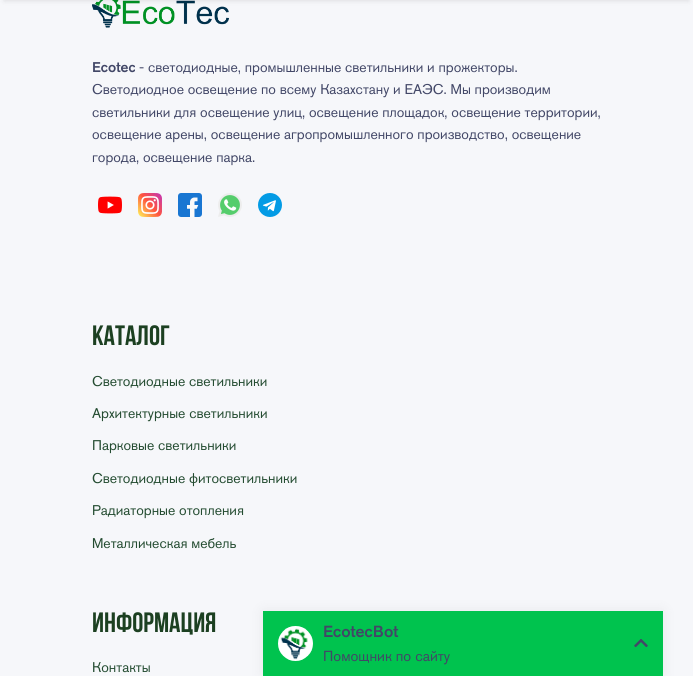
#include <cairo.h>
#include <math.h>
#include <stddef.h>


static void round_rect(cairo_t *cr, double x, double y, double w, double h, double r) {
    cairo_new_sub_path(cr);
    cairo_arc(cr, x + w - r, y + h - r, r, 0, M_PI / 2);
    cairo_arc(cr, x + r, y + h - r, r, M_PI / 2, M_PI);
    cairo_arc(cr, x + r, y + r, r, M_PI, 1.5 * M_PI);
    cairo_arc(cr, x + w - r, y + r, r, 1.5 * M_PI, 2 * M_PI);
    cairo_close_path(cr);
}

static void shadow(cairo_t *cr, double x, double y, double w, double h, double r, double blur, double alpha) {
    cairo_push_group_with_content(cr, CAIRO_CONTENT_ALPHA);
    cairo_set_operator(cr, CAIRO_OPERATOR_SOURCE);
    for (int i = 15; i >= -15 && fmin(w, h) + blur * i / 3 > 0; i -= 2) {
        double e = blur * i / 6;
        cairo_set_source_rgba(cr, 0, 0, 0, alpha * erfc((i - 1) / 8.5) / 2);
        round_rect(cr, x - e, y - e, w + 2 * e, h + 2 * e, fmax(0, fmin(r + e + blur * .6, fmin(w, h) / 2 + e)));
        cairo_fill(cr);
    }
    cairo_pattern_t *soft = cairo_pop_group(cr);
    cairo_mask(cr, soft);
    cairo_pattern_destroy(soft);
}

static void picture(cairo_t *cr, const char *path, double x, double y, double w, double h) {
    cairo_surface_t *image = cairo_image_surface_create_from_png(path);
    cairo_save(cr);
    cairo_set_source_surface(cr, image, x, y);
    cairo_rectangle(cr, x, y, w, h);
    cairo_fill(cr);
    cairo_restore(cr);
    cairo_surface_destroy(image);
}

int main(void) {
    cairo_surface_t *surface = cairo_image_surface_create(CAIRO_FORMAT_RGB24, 693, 676);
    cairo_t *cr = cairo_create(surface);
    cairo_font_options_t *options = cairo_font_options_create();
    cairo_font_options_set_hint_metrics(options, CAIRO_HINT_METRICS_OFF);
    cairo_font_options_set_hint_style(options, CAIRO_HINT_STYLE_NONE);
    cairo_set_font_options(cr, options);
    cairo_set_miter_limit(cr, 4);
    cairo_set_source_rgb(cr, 0.961, 0.965, 0.98);
    cairo_paint(cr);
    picture(cr, "img1.png", 92, 0, 137, 28);
    cairo_set_source_rgb(cr, 0, 0, 0);
    shadow(cr, 4, -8, 685, 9, 0, 2.5, 0.1);
    cairo_select_font_face(cr, "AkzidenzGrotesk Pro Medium", CAIRO_FONT_SLANT_NORMAL, CAIRO_FONT_WEIGHT_NORMAL);
    cairo_set_font_size(cr, 14);
    cairo_set_source_rgb(cr, 0.259, 0.278, 0.404);
    cairo_move_to(cr, 92, 72);
    cairo_show_text(cr, "Ecotec");
    cairo_select_font_face(cr, "AkzidenzGrotesk Pro", CAIRO_FONT_SLANT_NORMAL, CAIRO_FONT_WEIGHT_NORMAL);
    cairo_move_to(cr, 139, 72);
    cairo_show_text(cr, "- светодиодные, промышленные светильники и прожекторы.");
    cairo_move_to(cr, 92, 94);
    cairo_show_text(cr, "Светодиодное освещение по всему Казахстану и ЕАЭС. Мы производим");
    cairo_move_to(cr, 92, 117);
    cairo_show_text(cr, "светильники для освещение улиц, освещение площадок, освещение территории,");
    cairo_move_to(cr, 92, 139);
    cairo_show_text(cr, "освещение арены, освещение агропромышленного производство, освещение");
    cairo_move_to(cr, 92, 162);
    cairo_show_text(cr, "города, освещение парка.");
    picture(cr, "img2.png", 98, 196, 24, 18);
    picture(cr, "img3.png", 138, 193, 24, 24);
    picture(cr, "img4.png", 178, 193, 24, 24);
    picture(cr, "img5.png", 218, 193, 24, 24);
    picture(cr, "img6.png", 258, 193, 24, 24);
    cairo_select_font_face(cr, "Bebas Neue", CAIRO_FONT_SLANT_NORMAL, CAIRO_FONT_WEIGHT_BOLD);
    cairo_set_font_size(cr, 28);
    cairo_set_source_rgb(cr, 0.11, 0.251, 0.129);
    cairo_move_to(cr, 92, 345);
    cairo_show_text(cr, "Каталог");
    cairo_select_font_face(cr, "AkzidenzGrotesk Pro", CAIRO_FONT_SLANT_NORMAL, CAIRO_FONT_WEIGHT_NORMAL);
    cairo_set_font_size(cr, 14);
    cairo_set_source_rgb(cr, 0.141, 0.298, 0.192);
    cairo_move_to(cr, 92, 386);
    cairo_show_text(cr, "Светодиодные светильники");
    cairo_move_to(cr, 92, 418);
    cairo_show_text(cr, "Архитектурные светильники");
    cairo_move_to(cr, 92, 450);
    cairo_show_text(cr, "Парковые светильники");
    cairo_move_to(cr, 92, 483);
    cairo_show_text(cr, "Светодиодные фитосветильники");
    cairo_move_to(cr, 92, 515);
    cairo_show_text(cr, "Радиаторные отопления");
    cairo_move_to(cr, 92, 548);
    cairo_show_text(cr, "Металлическая мебель");
    cairo_select_font_face(cr, "Bebas Neue", CAIRO_FONT_SLANT_NORMAL, CAIRO_FONT_WEIGHT_BOLD);
    cairo_set_font_size(cr, 28);
    cairo_set_source_rgb(cr, 0.11, 0.251, 0.129);
    cairo_move_to(cr, 92, 632);
    cairo_show_text(cr, "Информация");
    cairo_select_font_face(cr, "AkzidenzGrotesk Pro", CAIRO_FONT_SLANT_NORMAL, CAIRO_FONT_WEIGHT_NORMAL);
    cairo_set_font_size(cr, 14);
    cairo_set_source_rgb(cr, 0.141, 0.298, 0.192);
    cairo_move_to(cr, 92, 672);
    cairo_show_text(cr, "Контакты");
    cairo_set_source_rgb(cr, 0, 0, 0);
    shadow(cr, 263, 611, 400, 65, 0, 7.5, 0.06);
    cairo_set_source_rgb(cr, 0, 0.765, 0.306);
    cairo_rectangle(cr, 263, 611, 400, 65);
    cairo_fill(cr);
    picture(cr, "img7.png", 278, 626, 35, 35);
    cairo_select_font_face(cr, "AkzidenzGrotesk Pro Medium", CAIRO_FONT_SLANT_NORMAL, CAIRO_FONT_WEIGHT_NORMAL);
    cairo_set_font_size(cr, 16);
    cairo_set_source_rgb(cr, 0.259, 0.278, 0.404);
    cairo_move_to(cr, 323, 637);
    cairo_show_text(cr, "EcotecBot");
    cairo_select_font_face(cr, "AkzidenzGrotesk Pro", CAIRO_FONT_SLANT_NORMAL, CAIRO_FONT_WEIGHT_NORMAL);
    cairo_set_font_size(cr, 14.5);
    cairo_move_to(cr, 323, 661);
    cairo_show_text(cr, "Помощник по сайту");
    picture(cr, "img8.png", 634, 639, 14, 9);
    cairo_surface_write_to_png(surface, "page.png");
    cairo_font_options_destroy(options);
    cairo_destroy(cr);
    cairo_surface_destroy(surface);
    return 0;
}
